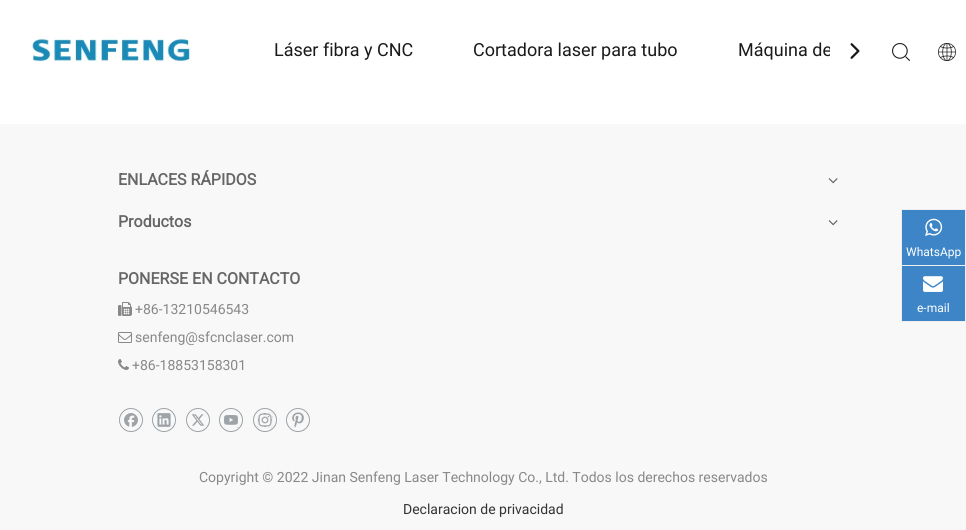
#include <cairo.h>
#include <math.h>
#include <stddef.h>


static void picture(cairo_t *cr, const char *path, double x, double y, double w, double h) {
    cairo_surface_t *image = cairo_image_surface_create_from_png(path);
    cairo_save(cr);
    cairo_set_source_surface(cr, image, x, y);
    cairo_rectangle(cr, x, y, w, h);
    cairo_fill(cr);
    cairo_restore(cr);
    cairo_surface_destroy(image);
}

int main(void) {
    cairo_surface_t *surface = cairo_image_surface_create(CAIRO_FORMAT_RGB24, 966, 530);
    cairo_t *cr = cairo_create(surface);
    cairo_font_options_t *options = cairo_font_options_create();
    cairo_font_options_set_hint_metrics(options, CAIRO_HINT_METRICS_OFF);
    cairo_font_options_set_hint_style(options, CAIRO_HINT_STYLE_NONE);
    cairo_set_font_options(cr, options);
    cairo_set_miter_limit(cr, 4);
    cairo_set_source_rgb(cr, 1, 1, 1);
    cairo_paint(cr);
    picture(cr, "img1.png", 31, 36, 161, 26);
    cairo_select_font_face(cr, "Roboto", CAIRO_FONT_SLANT_NORMAL, CAIRO_FONT_WEIGHT_NORMAL);
    cairo_set_font_size(cr, 18);
    cairo_set_source_rgb(cr, 0.102, 0.102, 0.102);
    cairo_move_to(cr, 274, 56);
    cairo_show_text(cr, "Láser fibra y CNC");
    cairo_move_to(cr, 473, 56);
    cairo_show_text(cr, "Cortadora laser para tubo");
    cairo_save(cr);
    cairo_rectangle(cr, 274, 0, 556, 100);
    cairo_clip(cr);
    cairo_move_to(cr, 738, 56);
    cairo_show_text(cr, "Máquina de");
    cairo_restore(cr);
    picture(cr, "img2.png", 850, 43, 10, 16);
    picture(cr, "img3.png", 892, 43, 18, 18);
    picture(cr, "img4.png", 938, 43, 18, 18);
    cairo_set_source_rgb(cr, 0.969, 0.969, 0.969);
    cairo_rectangle(cr, 0, 124, 966, 406);
    cairo_fill(cr);
    cairo_select_font_face(cr, "Roboto", CAIRO_FONT_SLANT_NORMAL, CAIRO_FONT_WEIGHT_BOLD);
    cairo_set_font_size(cr, 16);
    cairo_set_source_rgb(cr, 0.4, 0.4, 0.4);
    cairo_move_to(cr, 118, 185);
    cairo_show_text(cr, "ENLACES RÁPIDOS");
    picture(cr, "img5.png", 828, 178, 10, 6);
    cairo_move_to(cr, 118, 227);
    cairo_show_text(cr, "Productos");
    picture(cr, "img5.png", 828, 220, 10, 6);
    cairo_move_to(cr, 118, 284);
    cairo_show_text(cr, "PONERSE EN CONTACTO");
    picture(cr, "img6.png", 118, 302, 14, 14);
    cairo_select_font_face(cr, "Roboto", CAIRO_FONT_SLANT_NORMAL, CAIRO_FONT_WEIGHT_NORMAL);
    cairo_set_font_size(cr, 14);
    cairo_set_source_rgb(cr, 0.533, 0.533, 0.533);
    cairo_move_to(cr, 135, 314);
    cairo_show_text(cr, "+86-13210546543");
    picture(cr, "img7.png", 118, 332, 14, 11);
    cairo_move_to(cr, 135, 342);
    cairo_show_text(cr, "senfeng@sfcnclaser.com");
    picture(cr, "img8.png", 118, 359, 11, 11);
    cairo_move_to(cr, 132, 370);
    cairo_show_text(cr, "+86-18853158301");
    picture(cr, "img9.png", 119, 408, 24, 24);
    picture(cr, "img10.png", 152, 408, 24, 24);
    picture(cr, "img11.png", 186, 408, 24, 24);
    picture(cr, "img12.png", 219, 408, 24, 24);
    picture(cr, "img13.png", 253, 408, 24, 24);
    picture(cr, "img14.png", 286, 408, 24, 24);
    cairo_set_source_rgb(cr, 0.239, 0.522, 0.776);
    cairo_rectangle(cr, 902, 210, 63, 55);
    cairo_fill(cr);
    cairo_set_source_rgb(cr, 0.933, 0.933, 0.933);
    cairo_rectangle(cr, 901, 209, 65, 1);
    cairo_fill(cr);
    cairo_rectangle(cr, 965, 209, 1, 56);
    cairo_fill(cr);
    cairo_rectangle(cr, 901, 209, 1, 56);
    cairo_fill(cr);
    picture(cr, "img15.png", 925, 218, 18, 18);
    cairo_set_font_size(cr, 12);
    cairo_set_source_rgb(cr, 1, 1, 1);
    cairo_move_to(cr, 906, 256);
    cairo_show_text(cr, "WhatsApp");
    cairo_set_source_rgb(cr, 0.239, 0.522, 0.776);
    cairo_rectangle(cr, 901.5, 265.5, 64, 56);
    cairo_fill_preserve(cr);
    cairo_set_source_rgb(cr, 0.933, 0.933, 0.933);
    cairo_set_line_width(cr, 1);
    cairo_stroke(cr);
    picture(cr, "img16.png", 923, 276, 20, 16);
    cairo_set_source_rgb(cr, 1, 1, 1);
    cairo_move_to(cr, 917, 312);
    cairo_show_text(cr, "e-mail");
    cairo_set_font_size(cr, 14);
    cairo_set_source_rgb(cr, 0.533, 0.533, 0.533);
    cairo_move_to(cr, 199, 482);
    cairo_show_text(cr, "Copyright © 2022 Jinan Senfeng Laser Technology Co., Ltd. Todos los derechos reservados");
    cairo_set_source_rgb(cr, 0.2, 0.2, 0.2);
    cairo_move_to(cr, 403, 514);
    cairo_show_text(cr, "Declaracion de privacidad");
    cairo_surface_write_to_png(surface, "page.png");
    cairo_font_options_destroy(options);
    cairo_destroy(cr);
    cairo_surface_destroy(surface);
    return 0;
}
